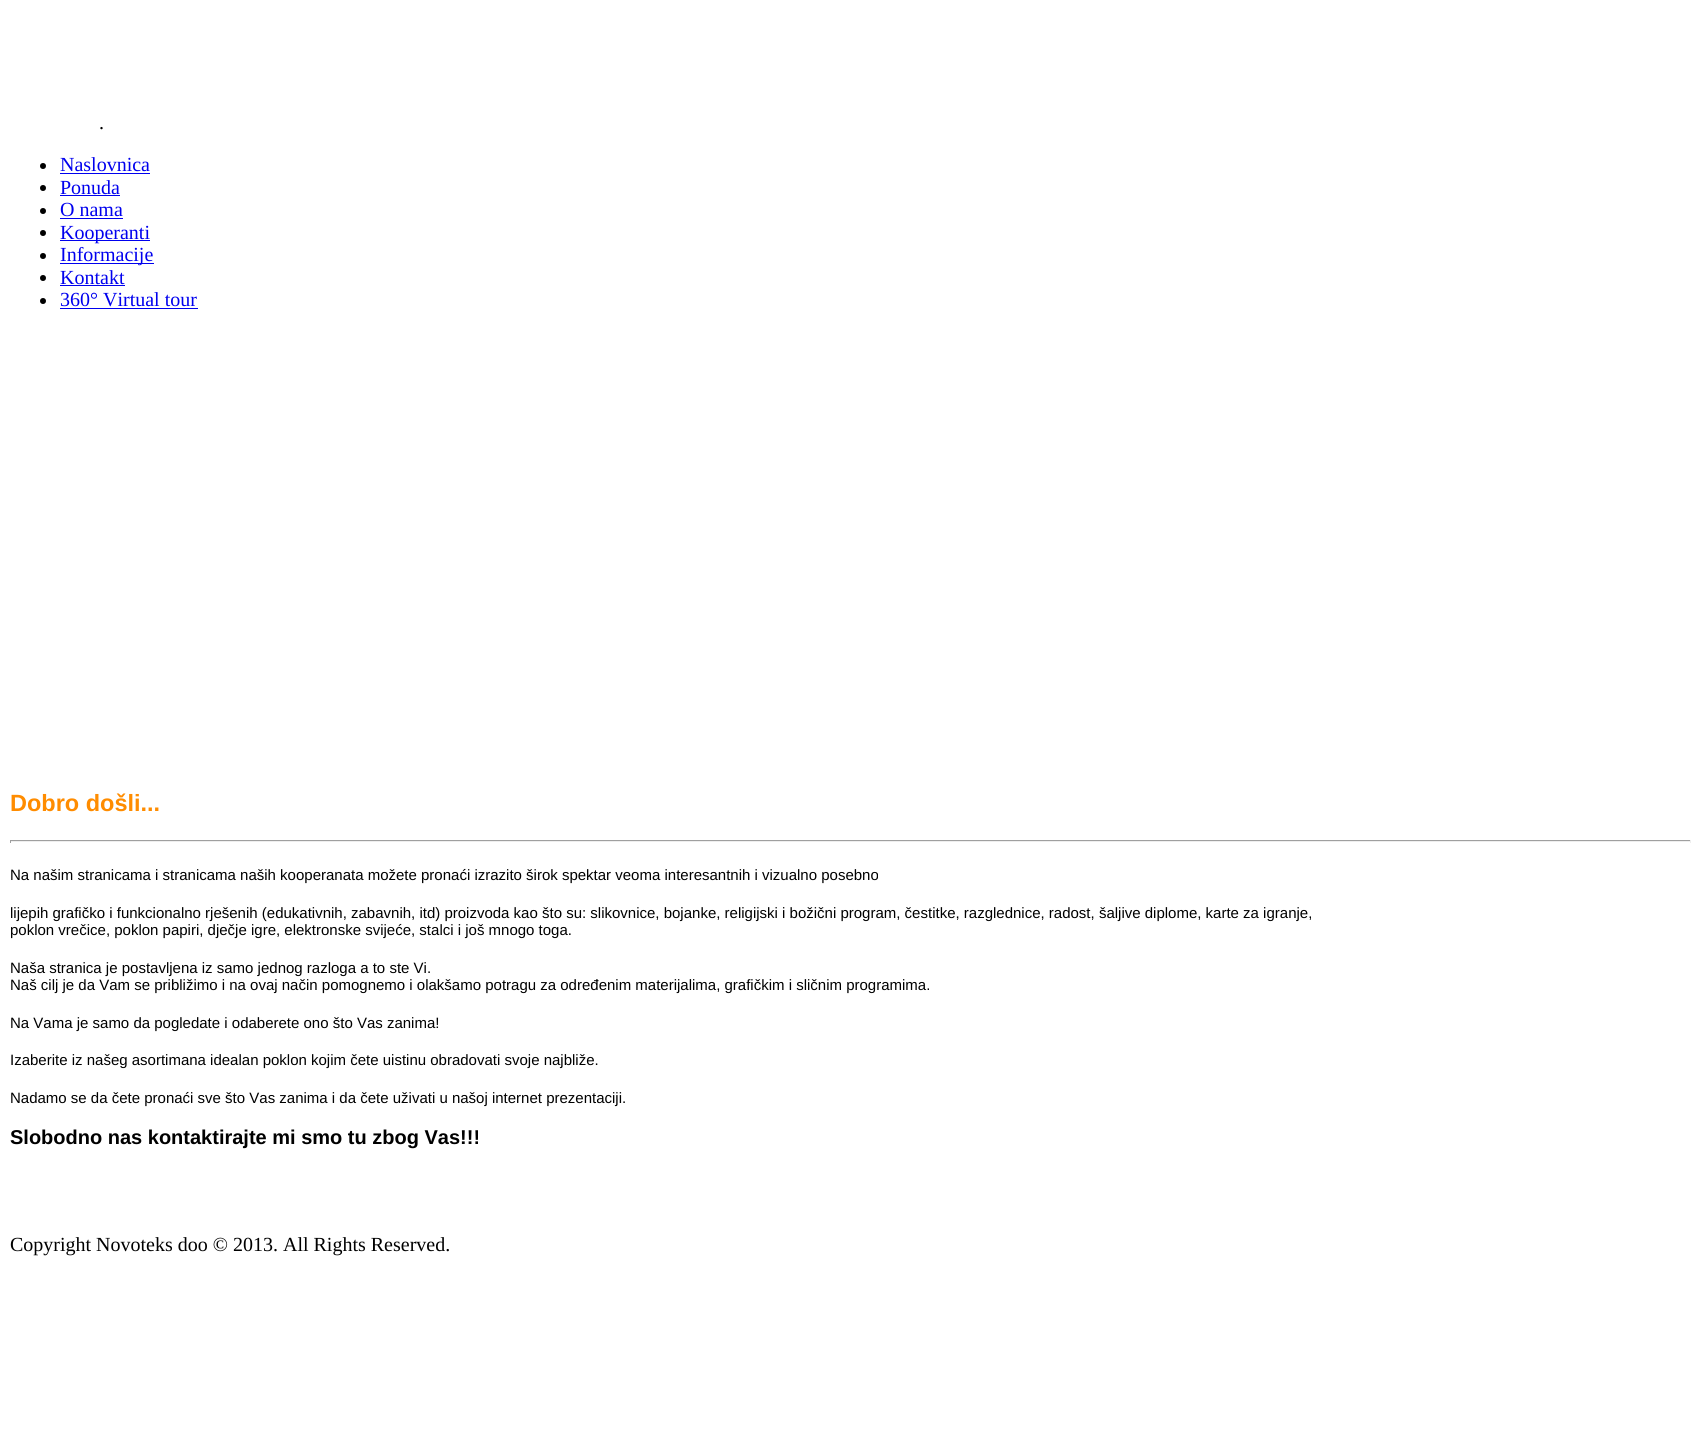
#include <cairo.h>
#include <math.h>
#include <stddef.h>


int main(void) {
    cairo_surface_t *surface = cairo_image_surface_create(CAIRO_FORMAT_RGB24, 1701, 1433);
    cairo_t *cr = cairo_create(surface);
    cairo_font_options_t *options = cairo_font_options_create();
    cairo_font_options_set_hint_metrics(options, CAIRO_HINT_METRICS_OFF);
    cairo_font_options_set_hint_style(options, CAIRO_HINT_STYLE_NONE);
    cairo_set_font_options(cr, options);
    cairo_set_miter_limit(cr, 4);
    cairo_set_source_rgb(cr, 1, 1, 1);
    cairo_paint(cr);
    cairo_select_font_face(cr, "Liberation Serif", CAIRO_FONT_SLANT_NORMAL, CAIRO_FONT_WEIGHT_NORMAL);
    cairo_set_font_size(cr, 20);
    cairo_set_source_rgb(cr, 0, 0, 0);
    cairo_move_to(cr, 99, 129);
    cairo_show_text(cr, ".");
    cairo_new_path(cr);
    cairo_arc(cr, 43, 166, 3, 0, 2 * M_PI);
    cairo_fill(cr);
    cairo_set_source_rgb(cr, 0, 0, 0.933);
    cairo_move_to(cr, 60, 171);
    cairo_show_text(cr, "Naslovnica");
    cairo_rectangle(cr, 60, 173, 90, 1);
    cairo_fill(cr);
    cairo_set_source_rgb(cr, 0, 0, 0);
    cairo_arc(cr, 43, 188, 3, 0, 2 * M_PI);
    cairo_fill(cr);
    cairo_set_source_rgb(cr, 0, 0, 0.933);
    cairo_move_to(cr, 60, 194);
    cairo_show_text(cr, "Ponuda");
    cairo_rectangle(cr, 60, 195, 60, 1);
    cairo_fill(cr);
    cairo_set_source_rgb(cr, 0, 0, 0);
    cairo_arc(cr, 43, 211, 3, 0, 2 * M_PI);
    cairo_fill(cr);
    cairo_set_source_rgb(cr, 0, 0, 0.933);
    cairo_move_to(cr, 60, 216);
    cairo_show_text(cr, "O nama");
    cairo_rectangle(cr, 60, 218, 63, 1);
    cairo_fill(cr);
    cairo_set_source_rgb(cr, 0, 0, 0);
    cairo_arc(cr, 43, 233, 3, 0, 2 * M_PI);
    cairo_fill(cr);
    cairo_set_source_rgb(cr, 0, 0, 0.933);
    cairo_rectangle(cr, 60, 240, 90, 1);
    cairo_fill(cr);
    cairo_move_to(cr, 60, 239);
    cairo_show_text(cr, "Kooperanti");
    cairo_set_source_rgb(cr, 0, 0, 0);
    cairo_new_path(cr);
    cairo_arc(cr, 43, 256, 3, 0, 2 * M_PI);
    cairo_fill(cr);
    cairo_set_source_rgb(cr, 0, 0, 0.933);
    cairo_rectangle(cr, 60, 263, 94, 1);
    cairo_fill(cr);
    cairo_move_to(cr, 60, 261);
    cairo_show_text(cr, "Informacije");
    cairo_set_source_rgb(cr, 0, 0, 0);
    cairo_new_path(cr);
    cairo_arc(cr, 43, 278, 3, 0, 2 * M_PI);
    cairo_fill(cr);
    cairo_set_source_rgb(cr, 0, 0, 0.933);
    cairo_move_to(cr, 60, 284);
    cairo_show_text(cr, "Kontakt");
    cairo_rectangle(cr, 60, 285, 65, 1);
    cairo_fill(cr);
    cairo_set_source_rgb(cr, 0, 0, 0);
    cairo_arc(cr, 43, 301, 3, 0, 2 * M_PI);
    cairo_fill(cr);
    cairo_set_source_rgb(cr, 0, 0, 0.933);
    cairo_move_to(cr, 60, 306);
    cairo_show_text(cr, "360° Virtual tour");
    cairo_rectangle(cr, 60, 308, 138, 1);
    cairo_fill(cr);
    cairo_select_font_face(cr, "Liberation Sans", CAIRO_FONT_SLANT_NORMAL, CAIRO_FONT_WEIGHT_BOLD);
    cairo_set_font_size(cr, 23.5);
    cairo_set_source_rgb(cr, 1, 0.549, 0);
    cairo_move_to(cr, 10, 811);
    cairo_show_text(cr, "Dobro došli...");
    cairo_set_source_rgb(cr, 0.624, 0.624, 0.624);
    cairo_rectangle(cr, 10, 840, 1681, 1);
    cairo_fill(cr);
    cairo_set_source_rgb(cr, 0.933, 0.933, 0.933);
    cairo_rectangle(cr, 1690, 840, 1, 3);
    cairo_fill(cr);
    cairo_rectangle(cr, 10, 841, 1681, 1);
    cairo_fill(cr);
    cairo_set_source_rgb(cr, 0.624, 0.624, 0.624);
    cairo_rectangle(cr, 10, 840, 1, 3);
    cairo_fill(cr);
    cairo_select_font_face(cr, "Liberation Sans", CAIRO_FONT_SLANT_NORMAL, CAIRO_FONT_WEIGHT_NORMAL);
    cairo_set_font_size(cr, 15);
    cairo_set_source_rgb(cr, 0, 0, 0);
    cairo_move_to(cr, 10, 880);
    cairo_show_text(cr, "Na našim stranicama i stranicama naših kooperanata možete pronaći izrazito širok spektar veoma interesantnih i vizualno posebno");
    cairo_move_to(cr, 10, 918);
    cairo_show_text(cr, "lijepih grafičko i funkcionalno rješenih (edukativnih, zabavnih, itd) proizvoda kao što su: slikovnice, bojanke, religijski i božični program, čestitke, razglednice, radost, šaljive diplome, karte za igranje,");
    cairo_move_to(cr, 10, 935);
    cairo_show_text(cr, "poklon vrečice, poklon papiri, dječje igre, elektronske svijeće, stalci i još mnogo toga.");
    cairo_move_to(cr, 10, 973);
    cairo_show_text(cr, "Naša stranica je postavljena iz samo jednog razloga a to ste Vi.");
    cairo_move_to(cr, 10, 990);
    cairo_show_text(cr, "Naš cilj je da Vam se približimo i na ovaj način pomognemo i olakšamo potragu za određenim materijalima, grafičkim i sličnim programima.");
    cairo_move_to(cr, 10, 1028);
    cairo_show_text(cr, "Na Vama je samo da pogledate i odaberete ono što Vas zanima!");
    cairo_move_to(cr, 10, 1065);
    cairo_show_text(cr, "Izaberite iz našeg asortimana idealan poklon kojim čete uistinu obradovati svoje najbliže.");
    cairo_move_to(cr, 10, 1103);
    cairo_show_text(cr, "Nadamo se da čete pronaći sve što Vas zanima i da čete uživati u našoj internet prezentaciji.");
    cairo_select_font_face(cr, "Liberation Sans", CAIRO_FONT_SLANT_NORMAL, CAIRO_FONT_WEIGHT_BOLD);
    cairo_set_font_size(cr, 20);
    cairo_move_to(cr, 10, 1144);
    cairo_show_text(cr, "Slobodno nas kontaktirajte mi smo tu zbog Vas!!!");
    cairo_select_font_face(cr, "Liberation Serif", CAIRO_FONT_SLANT_NORMAL, CAIRO_FONT_WEIGHT_NORMAL);
    cairo_move_to(cr, 10, 1251);
    cairo_show_text(cr, "Copyright Novoteks doo © 2013. All Rights Reserved.");
    cairo_surface_write_to_png(surface, "page.png");
    cairo_font_options_destroy(options);
    cairo_destroy(cr);
    cairo_surface_destroy(surface);
    return 0;
}
